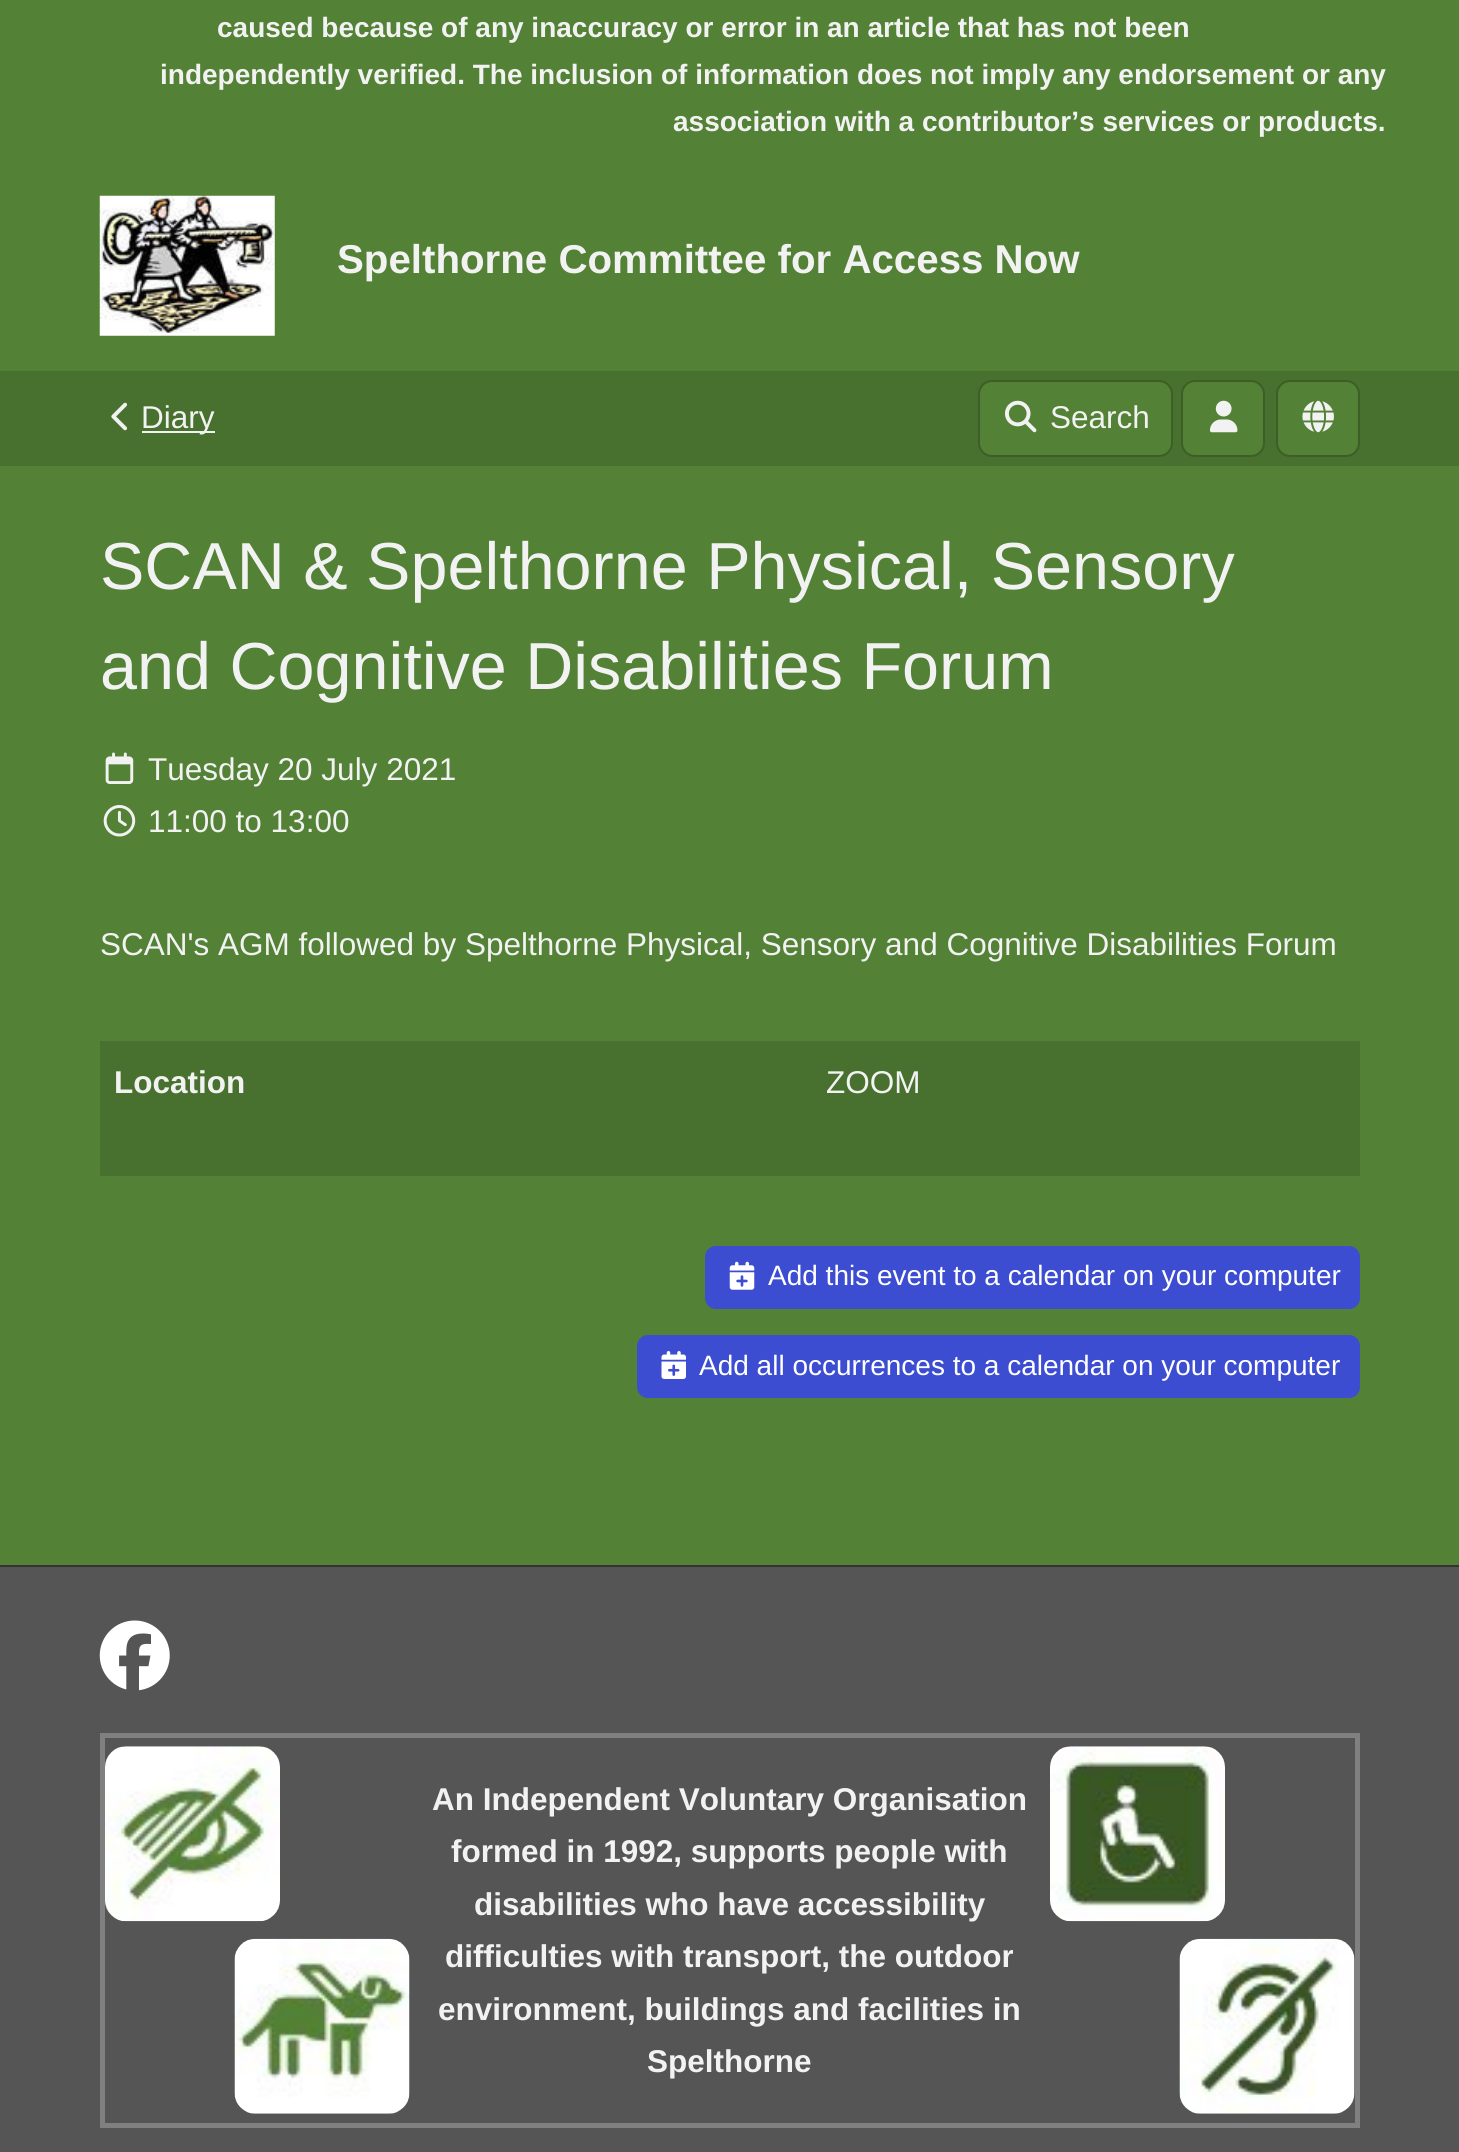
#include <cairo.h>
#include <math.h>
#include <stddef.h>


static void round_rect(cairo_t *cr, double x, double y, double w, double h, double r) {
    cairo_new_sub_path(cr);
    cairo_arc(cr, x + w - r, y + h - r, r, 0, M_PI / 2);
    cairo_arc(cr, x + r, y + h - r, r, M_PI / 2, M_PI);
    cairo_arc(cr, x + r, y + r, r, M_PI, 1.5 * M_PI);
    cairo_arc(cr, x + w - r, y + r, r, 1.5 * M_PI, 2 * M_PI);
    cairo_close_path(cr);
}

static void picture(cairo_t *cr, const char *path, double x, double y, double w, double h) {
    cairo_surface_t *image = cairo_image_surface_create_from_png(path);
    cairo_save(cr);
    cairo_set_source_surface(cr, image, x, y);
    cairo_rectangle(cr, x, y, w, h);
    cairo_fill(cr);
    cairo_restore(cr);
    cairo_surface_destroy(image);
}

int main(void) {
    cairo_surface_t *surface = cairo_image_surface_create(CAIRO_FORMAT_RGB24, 1459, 2152);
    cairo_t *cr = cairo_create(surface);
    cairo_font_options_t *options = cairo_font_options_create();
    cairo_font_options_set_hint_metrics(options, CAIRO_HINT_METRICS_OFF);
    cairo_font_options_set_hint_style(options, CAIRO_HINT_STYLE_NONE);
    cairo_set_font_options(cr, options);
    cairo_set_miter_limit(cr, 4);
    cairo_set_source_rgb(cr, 0.325, 0.506, 0.208);
    cairo_paint(cr);
    cairo_select_font_face(cr, "Liberation Sans", CAIRO_FONT_SLANT_NORMAL, CAIRO_FONT_WEIGHT_BOLD);
    cairo_set_font_size(cr, 28);
    cairo_set_source_rgb(cr, 0.949, 0.949, 0.949);
    cairo_move_to(cr, 217, 37);
    cairo_show_text(cr, "caused because of any inaccuracy or error in an article that has not been");
    cairo_move_to(cr, 160, 84);
    cairo_show_text(cr, "independently verified. The inclusion of information does not imply any endorsement or any");
    cairo_move_to(cr, 673, 131);
    cairo_show_text(cr, "association with a contributor’s services or products.");
    picture(cr, "img1.png", 99, 195, 176, 141);
    cairo_set_font_size(cr, 40.25);
    cairo_move_to(cr, 337, 273);
    cairo_show_text(cr, "Spelthorne Committee for Access Now");
    cairo_set_source_rgb(cr, 0.282, 0.439, 0.18);
    cairo_rectangle(cr, 0, 371, 1459, 95);
    cairo_fill(cr);
    picture(cr, "img2.png", 111, 402, 17, 29);
    cairo_set_source_rgb(cr, 0.949, 0.949, 0.949);
    cairo_rectangle(cr, 142, 431, 73, 2);
    cairo_fill(cr);
    cairo_select_font_face(cr, "Liberation Sans", CAIRO_FONT_SLANT_NORMAL, CAIRO_FONT_WEIGHT_NORMAL);
    cairo_set_font_size(cr, 31.5);
    cairo_move_to(cr, 141, 428);
    cairo_show_text(cr, "Diary");
    cairo_set_source_rgb(cr, 0.325, 0.506, 0.208);
    round_rect(cr, 979, 381, 193, 75, 13);
    cairo_fill_preserve(cr);
    cairo_set_source_rgb(cr, 0.239, 0.369, 0.149);
    cairo_stroke(cr);
    picture(cr, "img3.png", 1004, 400, 33, 33);
    cairo_set_source_rgb(cr, 0.949, 0.949, 0.949);
    cairo_move_to(cr, 1050, 428);
    cairo_show_text(cr, "Search");
    cairo_set_source_rgb(cr, 0.325, 0.506, 0.208);
    round_rect(cr, 1182, 381, 82, 75, 13);
    cairo_fill_preserve(cr);
    cairo_set_source_rgb(cr, 0.239, 0.369, 0.149);
    cairo_stroke(cr);
    picture(cr, "img4.png", 1209, 400, 29, 33);
    cairo_set_source_rgb(cr, 0.325, 0.506, 0.208);
    round_rect(cr, 1277, 381, 82, 75, 13);
    cairo_fill_preserve(cr);
    cairo_set_source_rgb(cr, 0.239, 0.369, 0.149);
    cairo_stroke(cr);
    picture(cr, "img5.png", 1302, 400, 32, 33);
    cairo_set_font_size(cr, 66.5);
    cairo_set_source_rgb(cr, 0.949, 0.949, 0.949);
    cairo_move_to(cr, 100, 589);
    cairo_show_text(cr, "SCAN & Spelthorne Physical, Sensory");
    cairo_move_to(cr, 100, 689);
    cairo_show_text(cr, "and Cognitive Disabilities Forum");
    picture(cr, "img6.png", 105, 752, 29, 32);
    cairo_set_font_size(cr, 31.5);
    cairo_move_to(cr, 148, 780);
    cairo_show_text(cr, "Tuesday 20 July 2021");
    picture(cr, "img7.png", 103, 805, 33, 32);
    cairo_move_to(cr, 148, 832);
    cairo_show_text(cr, "11:00 to 13:00");
    cairo_move_to(cr, 100, 955);
    cairo_show_text(cr, "SCAN's AGM followed by Spelthorne Physical, Sensory and Cognitive Disabilities Forum");
    cairo_set_source_rgb(cr, 0.282, 0.439, 0.18);
    cairo_rectangle(cr, 100, 1041, 1260, 135);
    cairo_fill(cr);
    cairo_select_font_face(cr, "Liberation Sans", CAIRO_FONT_SLANT_NORMAL, CAIRO_FONT_WEIGHT_BOLD);
    cairo_set_source_rgb(cr, 0.949, 0.949, 0.949);
    cairo_move_to(cr, 114, 1093);
    cairo_show_text(cr, "Location");
    cairo_select_font_face(cr, "Liberation Sans", CAIRO_FONT_SLANT_NORMAL, CAIRO_FONT_WEIGHT_NORMAL);
    cairo_move_to(cr, 826, 1093);
    cairo_show_text(cr, "ZOOM");
    cairo_set_source_rgb(cr, 0.235, 0.302, 0.82);
    round_rect(cr, 706, 1247, 653, 61, 10);
    cairo_fill_preserve(cr);
    cairo_stroke(cr);
    picture(cr, "img8.png", 729, 1261, 26, 29);
    cairo_set_font_size(cr, 28);
    cairo_set_source_rgb(cr, 1, 1, 1);
    cairo_move_to(cr, 768, 1285);
    cairo_show_text(cr, "Add this event to a calendar on your computer");
    cairo_set_source_rgb(cr, 0.235, 0.302, 0.82);
    round_rect(cr, 638, 1336, 721, 61, 10);
    cairo_fill_preserve(cr);
    cairo_stroke(cr);
    picture(cr, "img9.png", 661, 1351, 25, 28);
    cairo_set_source_rgb(cr, 1, 1, 1);
    cairo_move_to(cr, 699, 1375);
    cairo_show_text(cr, "Add all occurrences to a calendar on your computer");
    cairo_set_source_rgb(cr, 0.333, 0.333, 0.333);
    cairo_rectangle(cr, 0, 1567, 1459, 585);
    cairo_fill(cr);
    cairo_set_source_rgb(cr, 0.2, 0.2, 0.2);
    cairo_rectangle(cr, 0, 1565, 1459, 2);
    cairo_fill(cr);
    picture(cr, "img10.png", 99, 1620, 71, 71);
    cairo_set_source_rgb(cr, 0.502, 0.502, 0.502);
    cairo_rectangle(cr, 100, 1733, 1260, 5);
    cairo_fill(cr);
    cairo_rectangle(cr, 1355, 1733, 5, 395);
    cairo_fill(cr);
    cairo_rectangle(cr, 100, 2123, 1260, 5);
    cairo_fill(cr);
    cairo_rectangle(cr, 100, 1733, 5, 395);
    cairo_fill(cr);
    picture(cr, "img11.png", 105, 1746, 175, 176);
    picture(cr, "img12.png", 234, 1938, 176, 176);
    cairo_select_font_face(cr, "Liberation Sans", CAIRO_FONT_SLANT_NORMAL, CAIRO_FONT_WEIGHT_BOLD);
    cairo_set_font_size(cr, 31.5);
    cairo_set_source_rgb(cr, 0.949, 0.949, 0.949);
    cairo_move_to(cr, 432, 1810);
    cairo_show_text(cr, "An Independent Voluntary Organisation");
    cairo_move_to(cr, 451, 1862);
    cairo_show_text(cr, "formed in 1992, supports people with");
    cairo_move_to(cr, 474, 1915);
    cairo_show_text(cr, "disabilities who have accessibility");
    cairo_move_to(cr, 445, 1967);
    cairo_show_text(cr, "difficulties with transport, the outdoor");
    cairo_move_to(cr, 438, 2020);
    cairo_show_text(cr, "environment, buildings and facilities in");
    cairo_move_to(cr, 647, 2072);
    cairo_show_text(cr, "Spelthorne");
    picture(cr, "img13.png", 1050, 1746, 175, 176);
    picture(cr, "img14.png", 1179, 1938, 176, 176);
    cairo_surface_write_to_png(surface, "page.png");
    cairo_font_options_destroy(options);
    cairo_destroy(cr);
    cairo_surface_destroy(surface);
    return 0;
}
